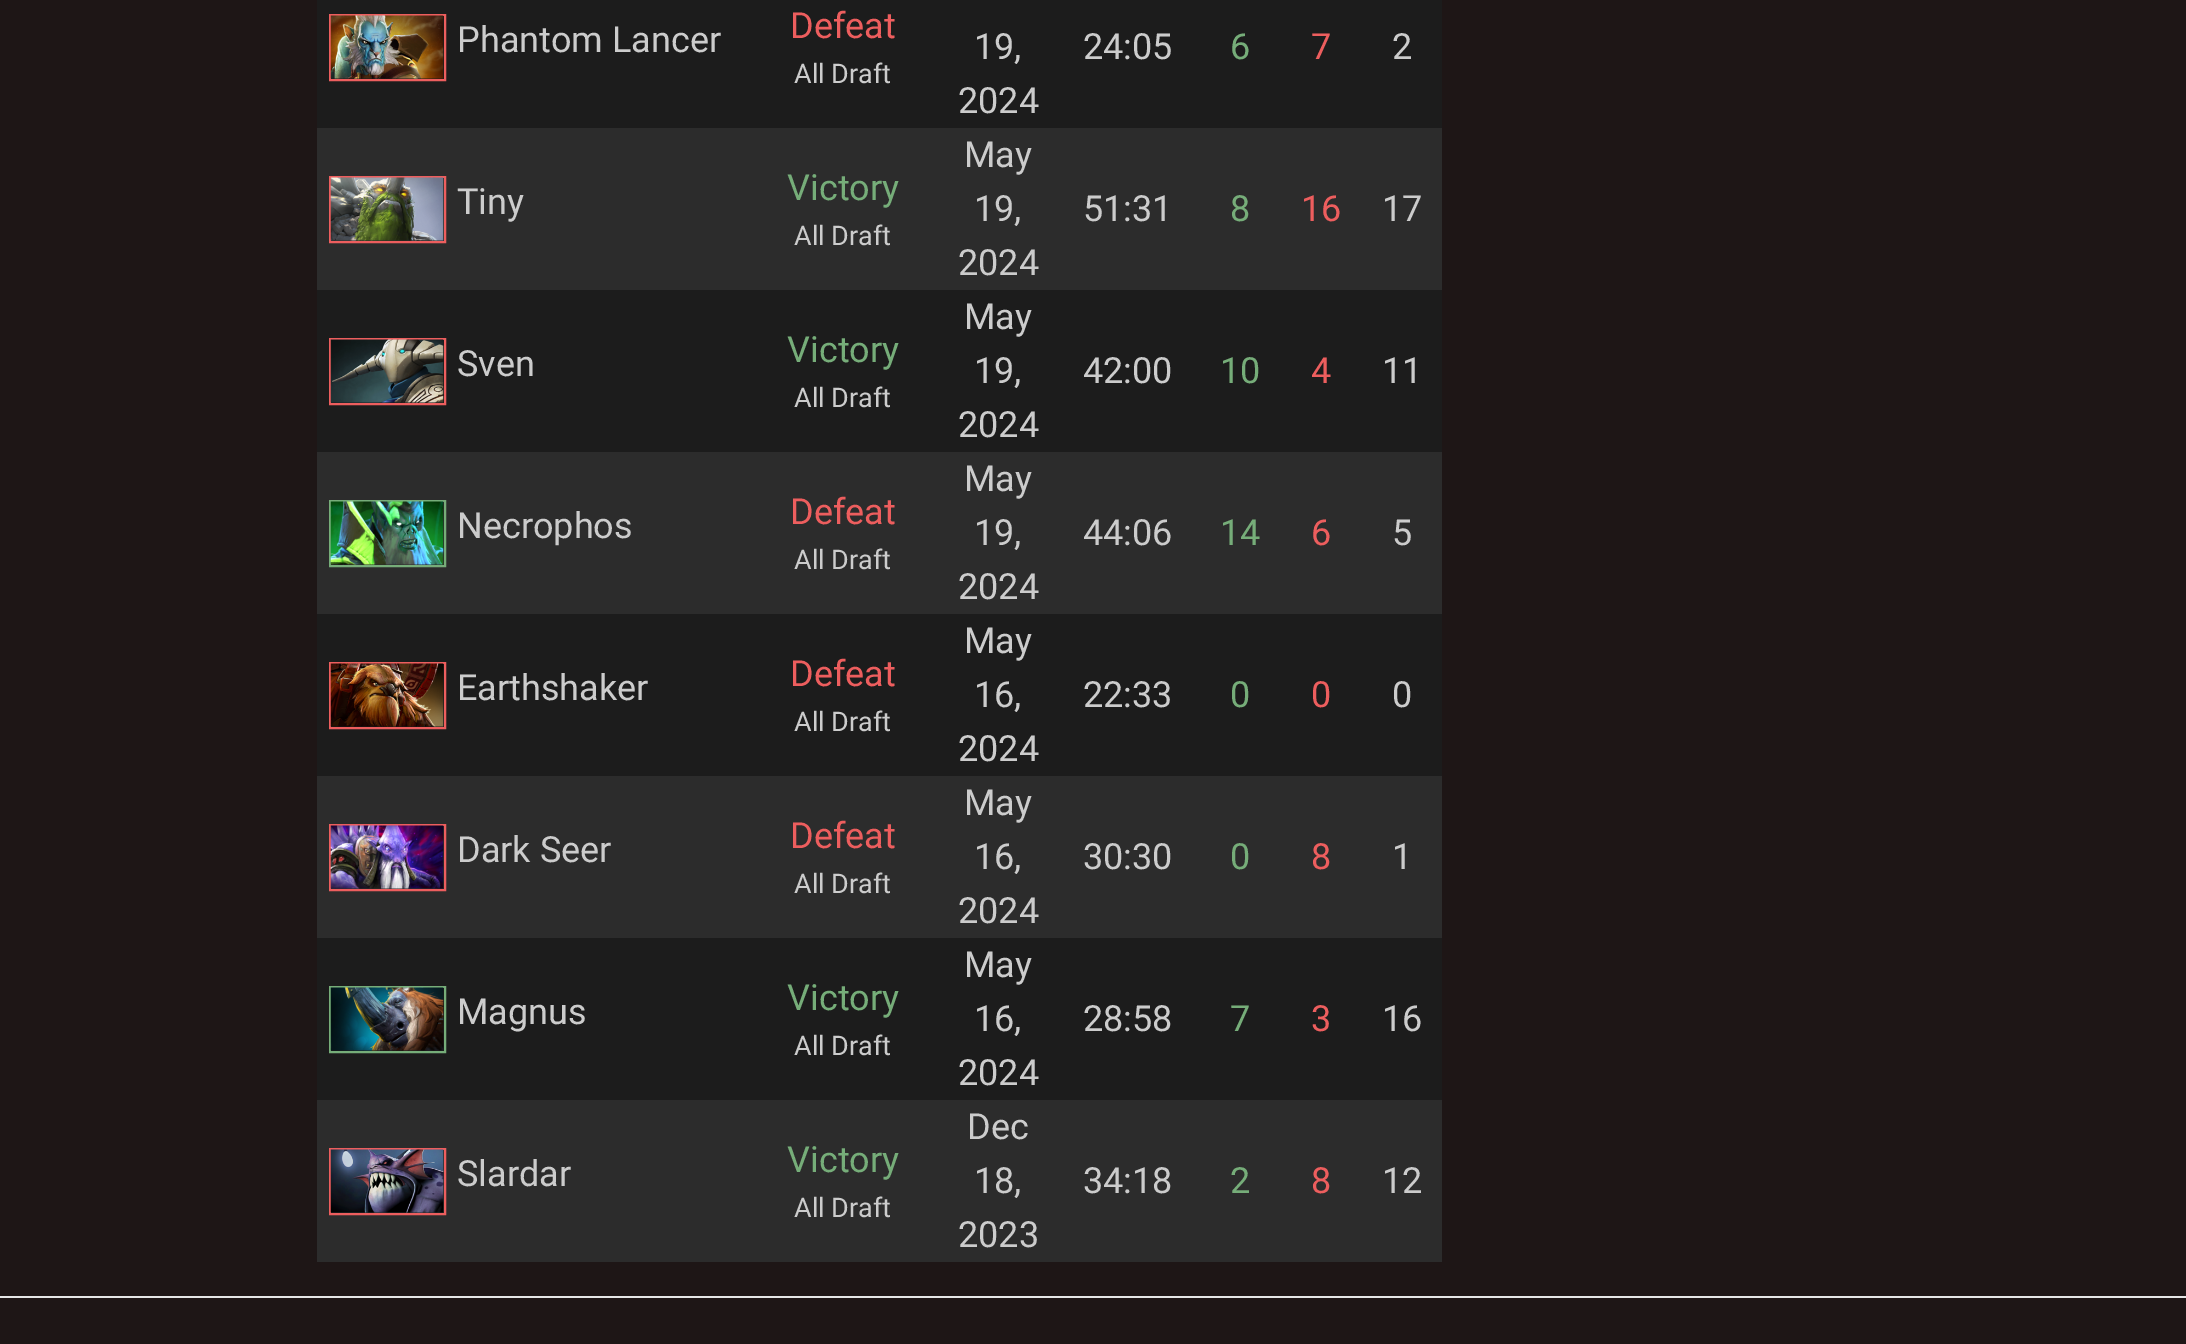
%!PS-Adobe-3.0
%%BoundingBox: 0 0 2186 1344
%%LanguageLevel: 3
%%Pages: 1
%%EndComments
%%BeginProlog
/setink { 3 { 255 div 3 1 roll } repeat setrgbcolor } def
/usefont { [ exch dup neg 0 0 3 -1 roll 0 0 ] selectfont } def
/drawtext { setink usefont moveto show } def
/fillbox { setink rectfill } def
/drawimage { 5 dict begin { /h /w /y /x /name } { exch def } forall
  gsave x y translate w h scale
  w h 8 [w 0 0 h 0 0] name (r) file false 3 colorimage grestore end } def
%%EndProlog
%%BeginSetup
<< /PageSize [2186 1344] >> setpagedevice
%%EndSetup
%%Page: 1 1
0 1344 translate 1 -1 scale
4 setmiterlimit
0 0 2186 1344 30 22 22 fillbox
317 0 1125 128 28 28 28 fillbox
237 94 94 setink
2 setlinewidth
330 15 115 65 rectstroke
(assets/img1.rgb) 330 15 114 64 drawimage
(Phantom Lancer) 457 52 /Roboto-Regular 36 204 204 204 drawtext
(Defeat) 790 38 /Roboto-Regular 36 237 94 94 drawtext
(All Draft) 794 83 /Roboto-Regular 27 204 204 204 drawtext
(19,) 974 59 /Roboto-Regular 36 204 204 204 drawtext
(2024) 958 113 /Roboto-Regular 36 204 204 204 drawtext
(24:05) 1083 59 /Roboto-Regular 36 204 204 204 drawtext
(6) 1230 59 /Roboto-Regular 36 118 173 121 drawtext
(7) 1311 59 /Roboto-Regular 36 237 94 94 drawtext
(2) 1392 59 /Roboto-Regular 36 204 204 204 drawtext
317 128 1125 162 44 44 44 fillbox
237 94 94 setink
330 177 115 65 rectstroke
(assets/img2.rgb) 330 177 114 64 drawimage
(Tiny) 457 214 /Roboto-Regular 36 204 204 204 drawtext
(Victory) 787 200 /Roboto-Regular 36 118 173 121 drawtext
(All Draft) 794 245 /Roboto-Regular 27 204 204 204 drawtext
(May) 964 167 /Roboto-Regular 36 204 204 204 drawtext
(19,) 974 221 /Roboto-Regular 36 204 204 204 drawtext
(2024) 958 275 /Roboto-Regular 36 204 204 204 drawtext
(51:31) 1083 221 /Roboto-Regular 36 204 204 204 drawtext
(8) 1230 221 /Roboto-Regular 36 118 173 121 drawtext
(16) 1301 221 /Roboto-Regular 36 237 94 94 drawtext
(17) 1382 221 /Roboto-Regular 36 204 204 204 drawtext
317 290 1125 162 28 28 28 fillbox
237 94 94 setink
330 339 115 65 rectstroke
(assets/img3.rgb) 330 339 114 64 drawimage
(Sven) 457 376 /Roboto-Regular 36 204 204 204 drawtext
(Victory) 787 362 /Roboto-Regular 36 118 173 121 drawtext
(All Draft) 794 407 /Roboto-Regular 27 204 204 204 drawtext
(May) 964 329 /Roboto-Regular 36 204 204 204 drawtext
(19,) 974 383 /Roboto-Regular 36 204 204 204 drawtext
(2024) 958 437 /Roboto-Regular 36 204 204 204 drawtext
(42:00) 1083 383 /Roboto-Regular 36 204 204 204 drawtext
(10) 1220 383 /Roboto-Regular 36 118 173 121 drawtext
(4) 1311 383 /Roboto-Regular 36 237 94 94 drawtext
(11) 1382 383 /Roboto-Regular 36 204 204 204 drawtext
317 452 1125 162 44 44 44 fillbox
118 173 121 setink
330 501 115 65 rectstroke
(assets/img4.rgb) 330 501 114 64 drawimage
(Necrophos) 457 538 /Roboto-Regular 36 204 204 204 drawtext
(Defeat) 790 524 /Roboto-Regular 36 237 94 94 drawtext
(All Draft) 794 569 /Roboto-Regular 27 204 204 204 drawtext
(May) 964 491 /Roboto-Regular 36 204 204 204 drawtext
(19,) 974 545 /Roboto-Regular 36 204 204 204 drawtext
(2024) 958 599 /Roboto-Regular 36 204 204 204 drawtext
(44:06) 1083 545 /Roboto-Regular 36 204 204 204 drawtext
(14) 1220 545 /Roboto-Regular 36 118 173 121 drawtext
(6) 1311 545 /Roboto-Regular 36 237 94 94 drawtext
(5) 1392 545 /Roboto-Regular 36 204 204 204 drawtext
317 614 1125 162 28 28 28 fillbox
237 94 94 setink
330 663 115 65 rectstroke
(assets/img5.rgb) 330 663 114 64 drawimage
(Earthshaker) 457 700 /Roboto-Regular 36 204 204 204 drawtext
(Defeat) 790 686 /Roboto-Regular 36 237 94 94 drawtext
(All Draft) 794 731 /Roboto-Regular 27 204 204 204 drawtext
(May) 964 653 /Roboto-Regular 36 204 204 204 drawtext
(16,) 974 707 /Roboto-Regular 36 204 204 204 drawtext
(2024) 958 761 /Roboto-Regular 36 204 204 204 drawtext
(22:33) 1083 707 /Roboto-Regular 36 204 204 204 drawtext
(0) 1230 707 /Roboto-Regular 36 118 173 121 drawtext
(0) 1311 707 /Roboto-Regular 36 237 94 94 drawtext
(0) 1392 707 /Roboto-Regular 36 204 204 204 drawtext
317 776 1125 162 44 44 44 fillbox
237 94 94 setink
330 825 115 65 rectstroke
(assets/img6.rgb) 330 825 114 64 drawimage
(Dark Seer) 457 862 /Roboto-Regular 36 204 204 204 drawtext
(Defeat) 790 848 /Roboto-Regular 36 237 94 94 drawtext
(All Draft) 794 893 /Roboto-Regular 27 204 204 204 drawtext
(May) 964 815 /Roboto-Regular 36 204 204 204 drawtext
(16,) 974 869 /Roboto-Regular 36 204 204 204 drawtext
(2024) 958 923 /Roboto-Regular 36 204 204 204 drawtext
(30:30) 1083 869 /Roboto-Regular 36 204 204 204 drawtext
(0) 1230 869 /Roboto-Regular 36 118 173 121 drawtext
(8) 1311 869 /Roboto-Regular 36 237 94 94 drawtext
(1) 1392 869 /Roboto-Regular 36 204 204 204 drawtext
317 938 1125 162 28 28 28 fillbox
118 173 121 setink
330 987 115 65 rectstroke
(assets/img7.rgb) 330 987 114 64 drawimage
(Magnus) 457 1024 /Roboto-Regular 36 204 204 204 drawtext
(Victory) 787 1010 /Roboto-Regular 36 118 173 121 drawtext
(All Draft) 794 1055 /Roboto-Regular 27 204 204 204 drawtext
(May) 964 977 /Roboto-Regular 36 204 204 204 drawtext
(16,) 974 1031 /Roboto-Regular 36 204 204 204 drawtext
(2024) 958 1085 /Roboto-Regular 36 204 204 204 drawtext
(28:58) 1083 1031 /Roboto-Regular 36 204 204 204 drawtext
(7) 1230 1031 /Roboto-Regular 36 118 173 121 drawtext
(3) 1311 1031 /Roboto-Regular 36 237 94 94 drawtext
(16) 1382 1031 /Roboto-Regular 36 204 204 204 drawtext
317 1100 1125 162 44 44 44 fillbox
237 94 94 setink
330 1149 115 65 rectstroke
(assets/img8.rgb) 330 1149 114 64 drawimage
(Slardar) 457 1186 /Roboto-Regular 36 204 204 204 drawtext
(Victory) 787 1172 /Roboto-Regular 36 118 173 121 drawtext
(All Draft) 794 1217 /Roboto-Regular 27 204 204 204 drawtext
(Dec) 967 1139 /Roboto-Regular 36 204 204 204 drawtext
(18,) 974 1193 /Roboto-Regular 36 204 204 204 drawtext
(2023) 958 1247 /Roboto-Regular 36 204 204 204 drawtext
(34:18) 1083 1193 /Roboto-Regular 36 204 204 204 drawtext
(2) 1230 1193 /Roboto-Regular 36 118 173 121 drawtext
(8) 1311 1193 /Roboto-Regular 36 237 94 94 drawtext
(12) 1382 1193 /Roboto-Regular 36 204 204 204 drawtext
0 1296 2186 2 229 229 229 fillbox
showpage
%%EOF
